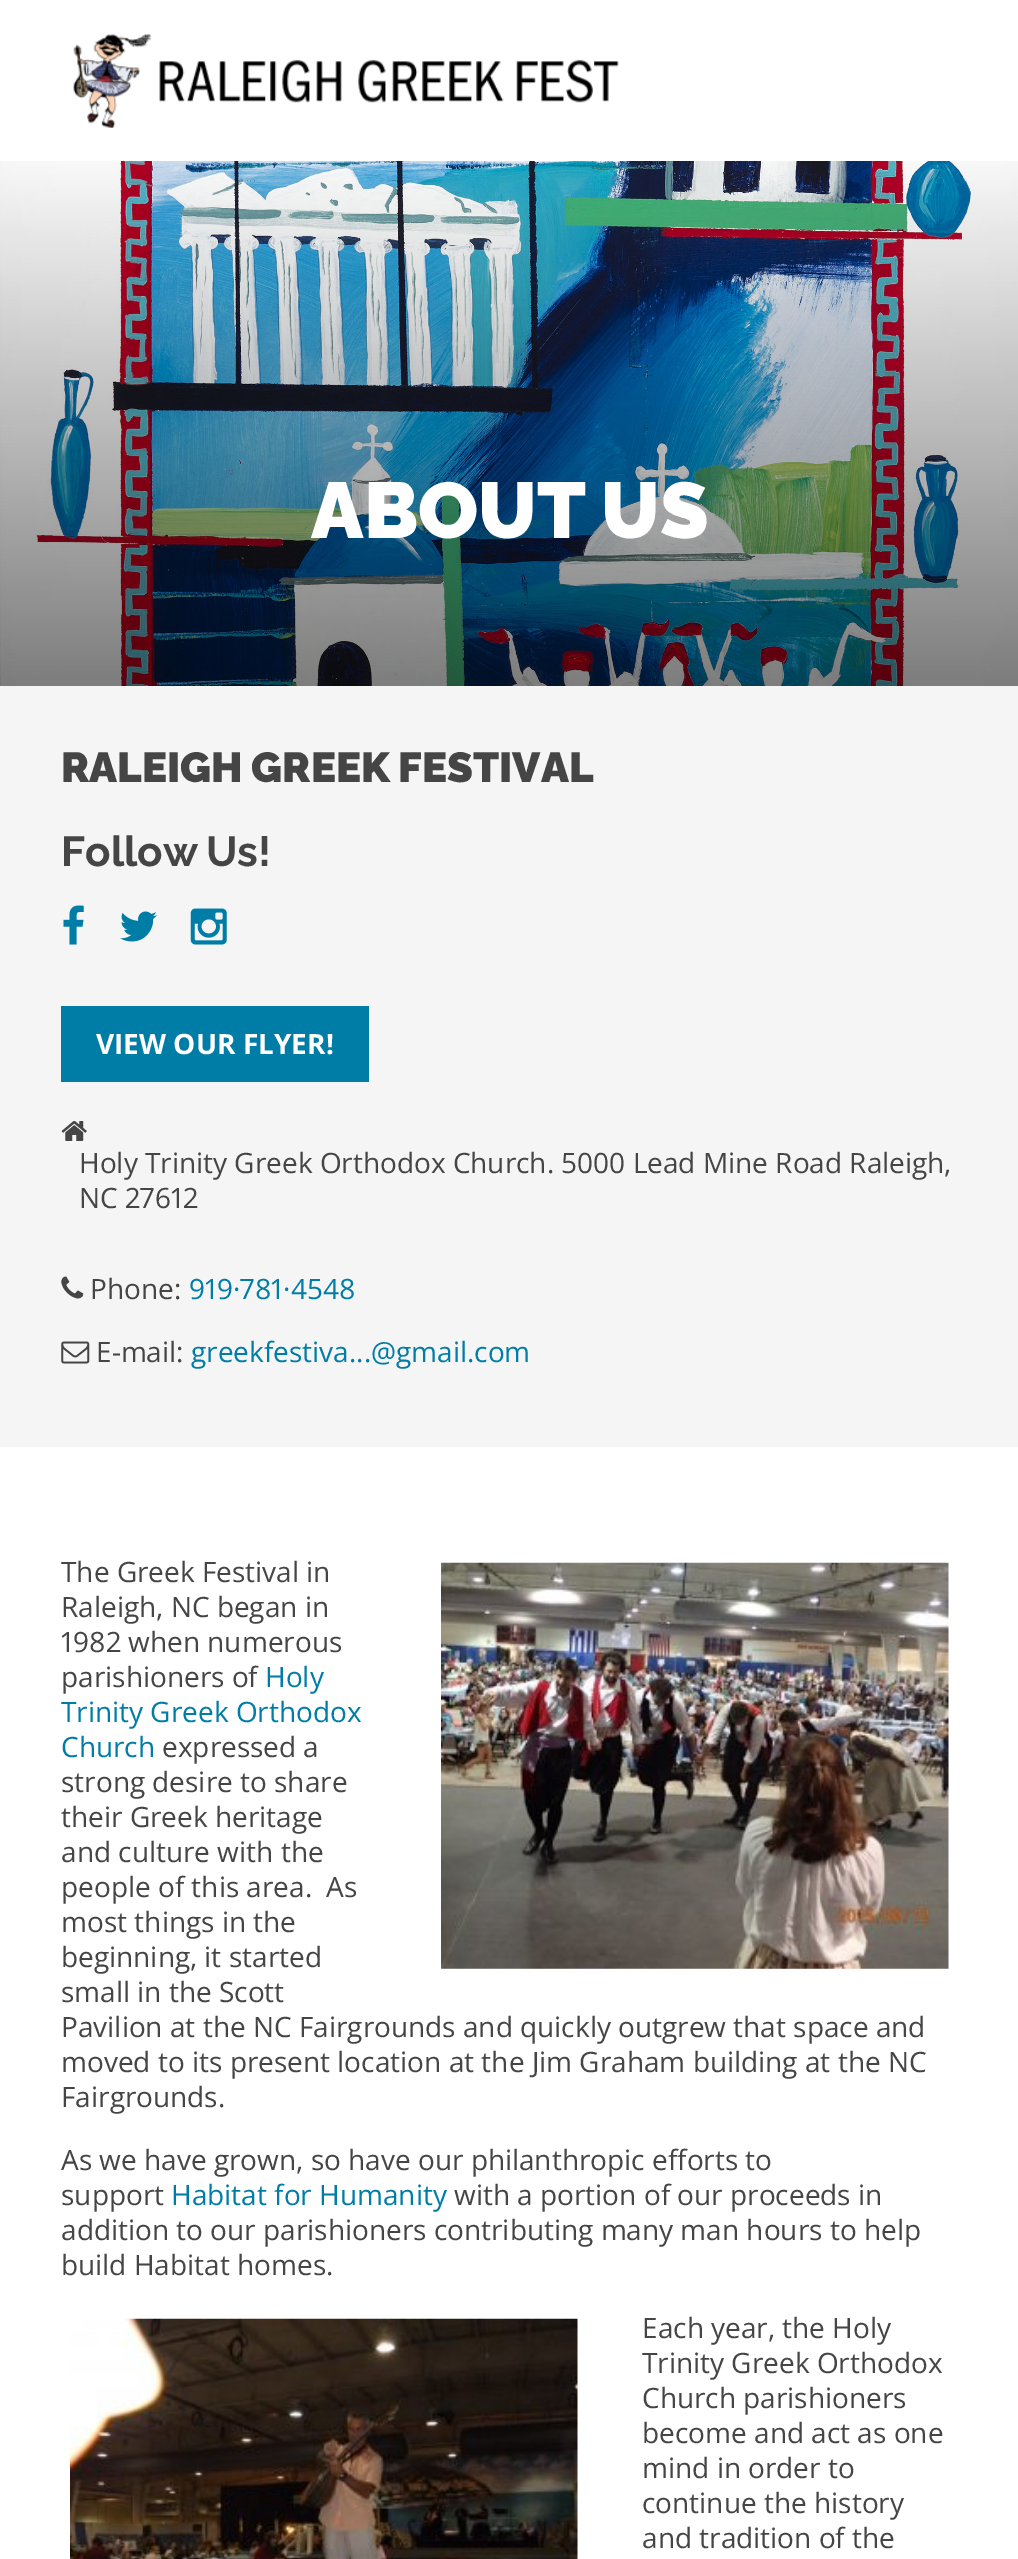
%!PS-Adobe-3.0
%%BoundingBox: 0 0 1018 2559
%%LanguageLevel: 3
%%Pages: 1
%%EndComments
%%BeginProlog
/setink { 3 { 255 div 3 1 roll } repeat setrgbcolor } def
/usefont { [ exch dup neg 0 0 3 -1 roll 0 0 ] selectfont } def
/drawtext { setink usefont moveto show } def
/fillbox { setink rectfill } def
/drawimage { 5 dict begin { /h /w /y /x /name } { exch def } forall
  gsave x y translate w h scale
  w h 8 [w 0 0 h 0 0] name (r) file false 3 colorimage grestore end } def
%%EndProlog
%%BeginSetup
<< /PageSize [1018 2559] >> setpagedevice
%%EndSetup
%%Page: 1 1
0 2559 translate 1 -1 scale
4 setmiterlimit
0 0 1018 2559 255 255 255 fillbox
(assets/img1.rgb) 73 34 546 94 drawimage
(assets/img2.rgb) 0 161 1018 525 drawimage
/Raleway-Black 78.75 usefont
311 538 moveto -2 0 32 (ABOUT US) widthshow
0 686 1018 761 245 245 245 fillbox
/Raleway-Black 42 usefont
69 69 69 setink
61 782 moveto -1 0 32 (RALEIGH GREEK FESTIVAL) widthshow
/Raleway-Bold 42 usefont
61 866 moveto -2 0 32 (Follow Us!) widthshow
(assets/img3.rgb) 63 905 21 40 drawimage
(assets/img4.rgb) 120 911 37 31 drawimage
(assets/img5.rgb) 190 908 37 37 drawimage
61 1006 308 76 0 125 167 fillbox
(VIEW OUR FLYER!) 96 1054 /OpenSans-Bold 28 255 255 255 drawtext
(assets/img6.rgb) 61 1121 26 20 drawimage
(Holy Trinity Greek Orthodox Church. 5000 Lead Mine Road Raleigh,) 79 1173 /OpenSans-Regular 28 69 69 69 drawtext
(NC 27612) 79 1208 /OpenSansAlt-Regular 28 69 69 69 drawtext
(assets/img7.rgb) 61 1276 23 23 drawimage
(Phone:) 90 1299 /OpenSans-Regular 28 69 69 69 drawtext
(919·781·4548) 189 1299 /OpenSansAlt-Regular 28 0 125 167 drawtext
(assets/img8.rgb) 61 1341 29 23 drawimage
(E-mail:) 96 1362 /OpenSans-Regular 28 69 69 69 drawtext
(greekfestiva...@gmail.com) 191 1362 /OpenSans-Regular 28 0 125 167 drawtext
(The Greek Festival in) 61 1582 /OpenSans-Regular 28 69 69 69 drawtext
(assets/img9.rgb) 441 1562 508 407 drawimage
(Raleigh, NC began in) 61 1617 /OpenSans-Regular 28 69 69 69 drawtext
(1982 when numerous) 61 1652 /OpenSansAlt-Regular 28 69 69 69 drawtext
(parishioners of) 61 1687 /OpenSans-Regular 28 69 69 69 drawtext
(Holy) 265 1687 /OpenSans-Regular 28 0 125 167 drawtext
(Trinity Greek Orthodox) 61 1722 /OpenSans-Regular 28 0 125 167 drawtext
(Church) 61 1757 /OpenSans-Regular 28 0 125 167 drawtext
(expressed a) 162 1757 /OpenSans-Regular 28 69 69 69 drawtext
(strong desire to share) 61 1792 /OpenSans-Regular 28 69 69 69 drawtext
(their Greek heritage) 61 1827 /OpenSans-Regular 28 69 69 69 drawtext
(and culture with the) 61 1862 /OpenSans-Regular 28 69 69 69 drawtext
(people of this area.  As) 61 1897 /OpenSans-Regular 28 69 69 69 drawtext
(most things in the) 61 1932 /OpenSans-Regular 28 69 69 69 drawtext
(beginning, it started) 61 1967 /OpenSans-Regular 28 69 69 69 drawtext
(small in the Scott) 61 2002 /OpenSans-Regular 28 69 69 69 drawtext
(Pavilion at the NC Fairgrounds and quickly outgrew that space and) 61 2037 /OpenSans-Regular 28 69 69 69 drawtext
(moved to its present location at the Jim Graham building at the NC) 61 2072 /OpenSans-Regular 28 69 69 69 drawtext
(Fairgrounds.) 61 2107 /OpenSans-Regular 28 69 69 69 drawtext
(As we have grown, so have our philanthropic efforts to) 61 2170 /OpenSans-Regular 28 69 69 69 drawtext
(support) 61 2205 /OpenSans-Regular 28 69 69 69 drawtext
(Habitat for Humanity) 171 2205 /OpenSans-Regular 28 0 125 167 drawtext
(with a portion of our proceeds in) 454 2205 /OpenSans-Regular 28 69 69 69 drawtext
(addition to our parishioners contributing many man hours to help) 61 2240 /OpenSans-Regular 28 69 69 69 drawtext
(build Habitat homes.) 61 2275 /OpenSans-Regular 28 69 69 69 drawtext
(assets/img10.rgb) 70 2318 508 241 drawimage
(Each year, the Holy) 642 2338 /OpenSans-Regular 28 69 69 69 drawtext
(Trinity Greek Orthodox) 642 2373 /OpenSans-Regular 28 69 69 69 drawtext
(Church parishioners) 642 2408 /OpenSans-Regular 28 69 69 69 drawtext
(become and act as one) 642 2443 /OpenSans-Regular 28 69 69 69 drawtext
(mind in order to) 642 2478 /OpenSans-Regular 28 69 69 69 drawtext
(continue the history) 642 2513 /OpenSans-Regular 28 69 69 69 drawtext
(and tradition of the) 642 2548 /OpenSans-Regular 28 69 69 69 drawtext
showpage
%%EOF
